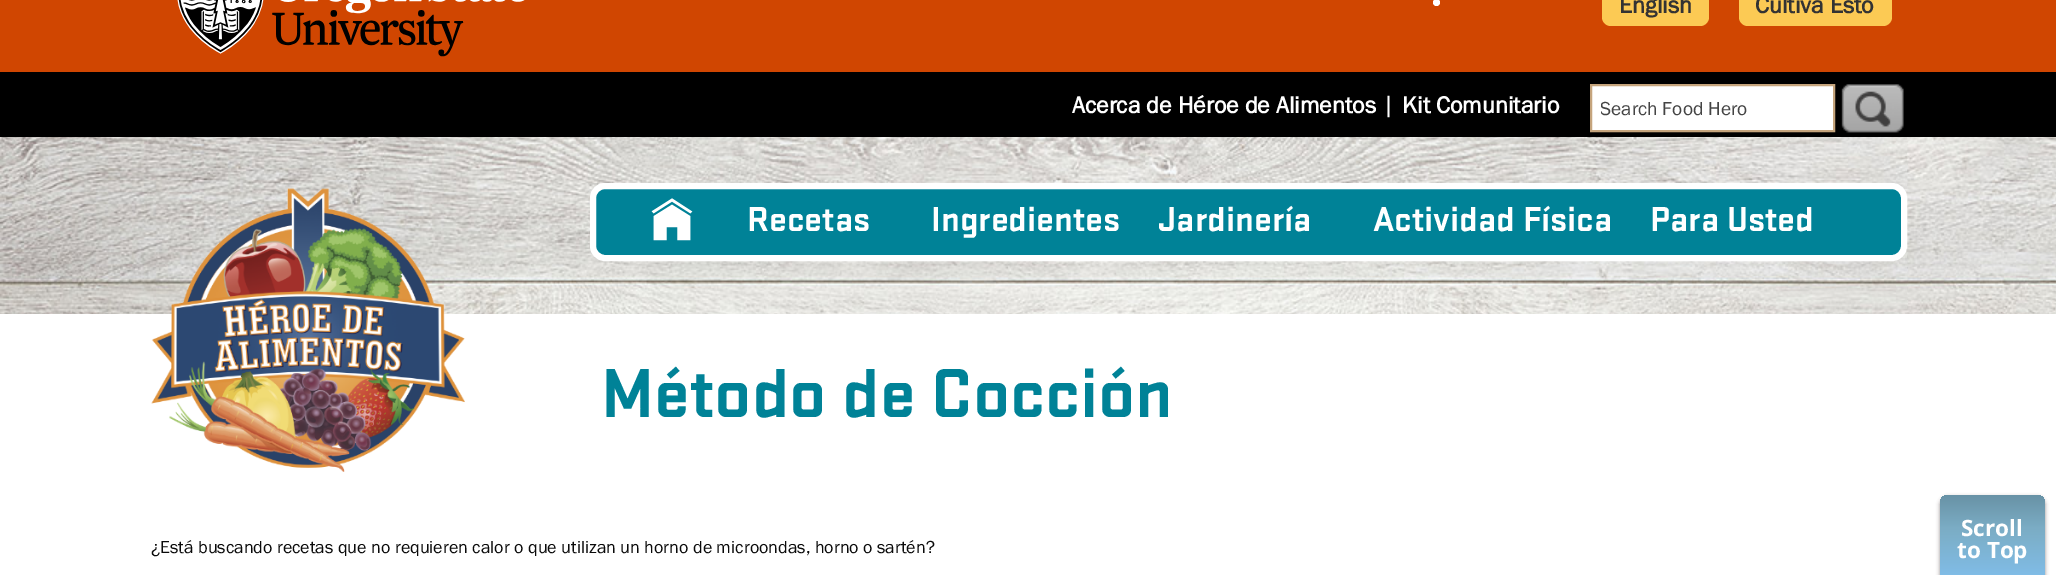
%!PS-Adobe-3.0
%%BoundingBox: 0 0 2056 575
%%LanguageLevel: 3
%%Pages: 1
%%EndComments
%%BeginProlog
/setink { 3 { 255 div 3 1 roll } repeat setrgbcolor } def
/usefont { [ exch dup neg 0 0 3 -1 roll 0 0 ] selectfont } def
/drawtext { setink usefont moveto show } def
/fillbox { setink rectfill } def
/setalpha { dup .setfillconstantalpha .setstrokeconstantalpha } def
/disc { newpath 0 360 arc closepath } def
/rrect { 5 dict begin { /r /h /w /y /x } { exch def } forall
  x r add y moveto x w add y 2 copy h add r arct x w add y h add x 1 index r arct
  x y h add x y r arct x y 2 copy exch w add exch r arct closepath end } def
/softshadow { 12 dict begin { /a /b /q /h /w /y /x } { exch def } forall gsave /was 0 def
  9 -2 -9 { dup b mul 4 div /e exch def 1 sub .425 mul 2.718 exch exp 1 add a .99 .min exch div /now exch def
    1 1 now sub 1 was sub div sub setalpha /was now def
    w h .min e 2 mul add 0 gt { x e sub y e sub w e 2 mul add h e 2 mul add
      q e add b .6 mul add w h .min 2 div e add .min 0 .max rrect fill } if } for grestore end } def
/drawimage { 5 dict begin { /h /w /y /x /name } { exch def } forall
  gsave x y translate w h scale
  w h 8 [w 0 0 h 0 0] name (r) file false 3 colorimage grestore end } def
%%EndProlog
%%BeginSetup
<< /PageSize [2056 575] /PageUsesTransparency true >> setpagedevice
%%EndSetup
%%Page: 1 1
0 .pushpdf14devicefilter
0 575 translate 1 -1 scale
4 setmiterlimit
0 0 2056 575 0 0 0 fillbox
0 0 2056 72 208 70 1 fillbox
(assets/img1.rgb) 177 0 348 57 drawimage
255 255 255 setink
1436.5 2.5 3.5 disc fill
252 202 84 setink
1602 -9 107 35 9 rrect fill
(English) 1619 13 /FranklinGothic-Bold 24 51 51 51 drawtext
252 202 84 setink
1739 -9 153 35 9 rrect fill
(Cultiva Esto) 1755 13 /FranklinGothic-Bold 24 51 51 51 drawtext
(Acerca de Héroe de Alimentos) 1072 113 /FranklinGothic-Bold 24 255 255 255 drawtext
(|) 1382 113 /FranklinGothic-Regular 26 255 255 255 drawtext
(Kit Comunitario) 1402 113 /FranklinGothic-Bold 24 255 255 255 drawtext
1591 85 moveto 1834 85 lineto 1834 131 lineto 1591 131 lineto closepath gsave fill grestore
197 164 124 setink
2 setlinewidth
stroke
gsave
1601 96 223 23 rectclip
(Search Food Hero) 1600 115 /FranklinGothic-Regular 19.5 68 68 68 drawtext
grestore
(assets/img2.rgb) 1841 84 63 49 drawimage
(assets/img3.rgb) 0 137 2056 177 drawimage
0 130 151 setink
593 186 1311 72 12 rrect gsave fill grestore
255 255 255 setink
6 setlinewidth
stroke
(assets/img4.rgb) 651 198 42 43 drawimage
(Recetas) 747 231 /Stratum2-Bold 36 255 255 255 drawtext
(Ingredientes) 931 231 /Stratum2-Bold 36 255 255 255 drawtext
(Jardinería) 1158 231 /Stratum2-Bold 36 255 255 255 drawtext
(Actividad Física) 1373 231 /Stratum2-Bold 36 255 255 255 drawtext
(Para Usted) 1650 231 /Stratum2-Bold 36 255 255 255 drawtext
0 314 2056 261 255 255 255 fillbox
(assets/img5.rgb) 151 188 314 284 drawimage
(Método de Cocción) 601 417 /Stratum2-Bold 72 0 130 151 drawtext
(¿Está buscando recetas que no requieren calor o que utilizan un horno de microondas, horno o sartén?) 151 553 /FranklinGothic-Regular 18 10 10 10 drawtext
34 25 25 setink
1940 497 105 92 8 2 0.5 softshadow
gsave 1940 495 105 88 8 rrect clip newpath
<< /ShadingType 2 /ColorSpace /DeviceRGB /Coords [1992 495 1992 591] /Extend [true true] /Function << /FunctionType 3 /Domain [0 1] /Functions [<< /FunctionType 2 /Domain [0 1] /C0 [0.408 0.573 0.651] /C1 [0.482 0.675 0.769] /N 1 >> << /FunctionType 2 /Domain [0 1] /C0 [0.482 0.675 0.769] /C1 [0.51 0.757 0.949] /N 1 >>] /Bounds [0.34] /Encode [0 1 0 1] >> >> shfill grestore
(Scroll) 1961 536 /OpenSans-Bold 22.5 255 255 255 drawtext
(to Top) 1957 558 /OpenSans-Bold 22.5 255 255 255 drawtext
.poppdf14devicefilter showpage
%%EOF
